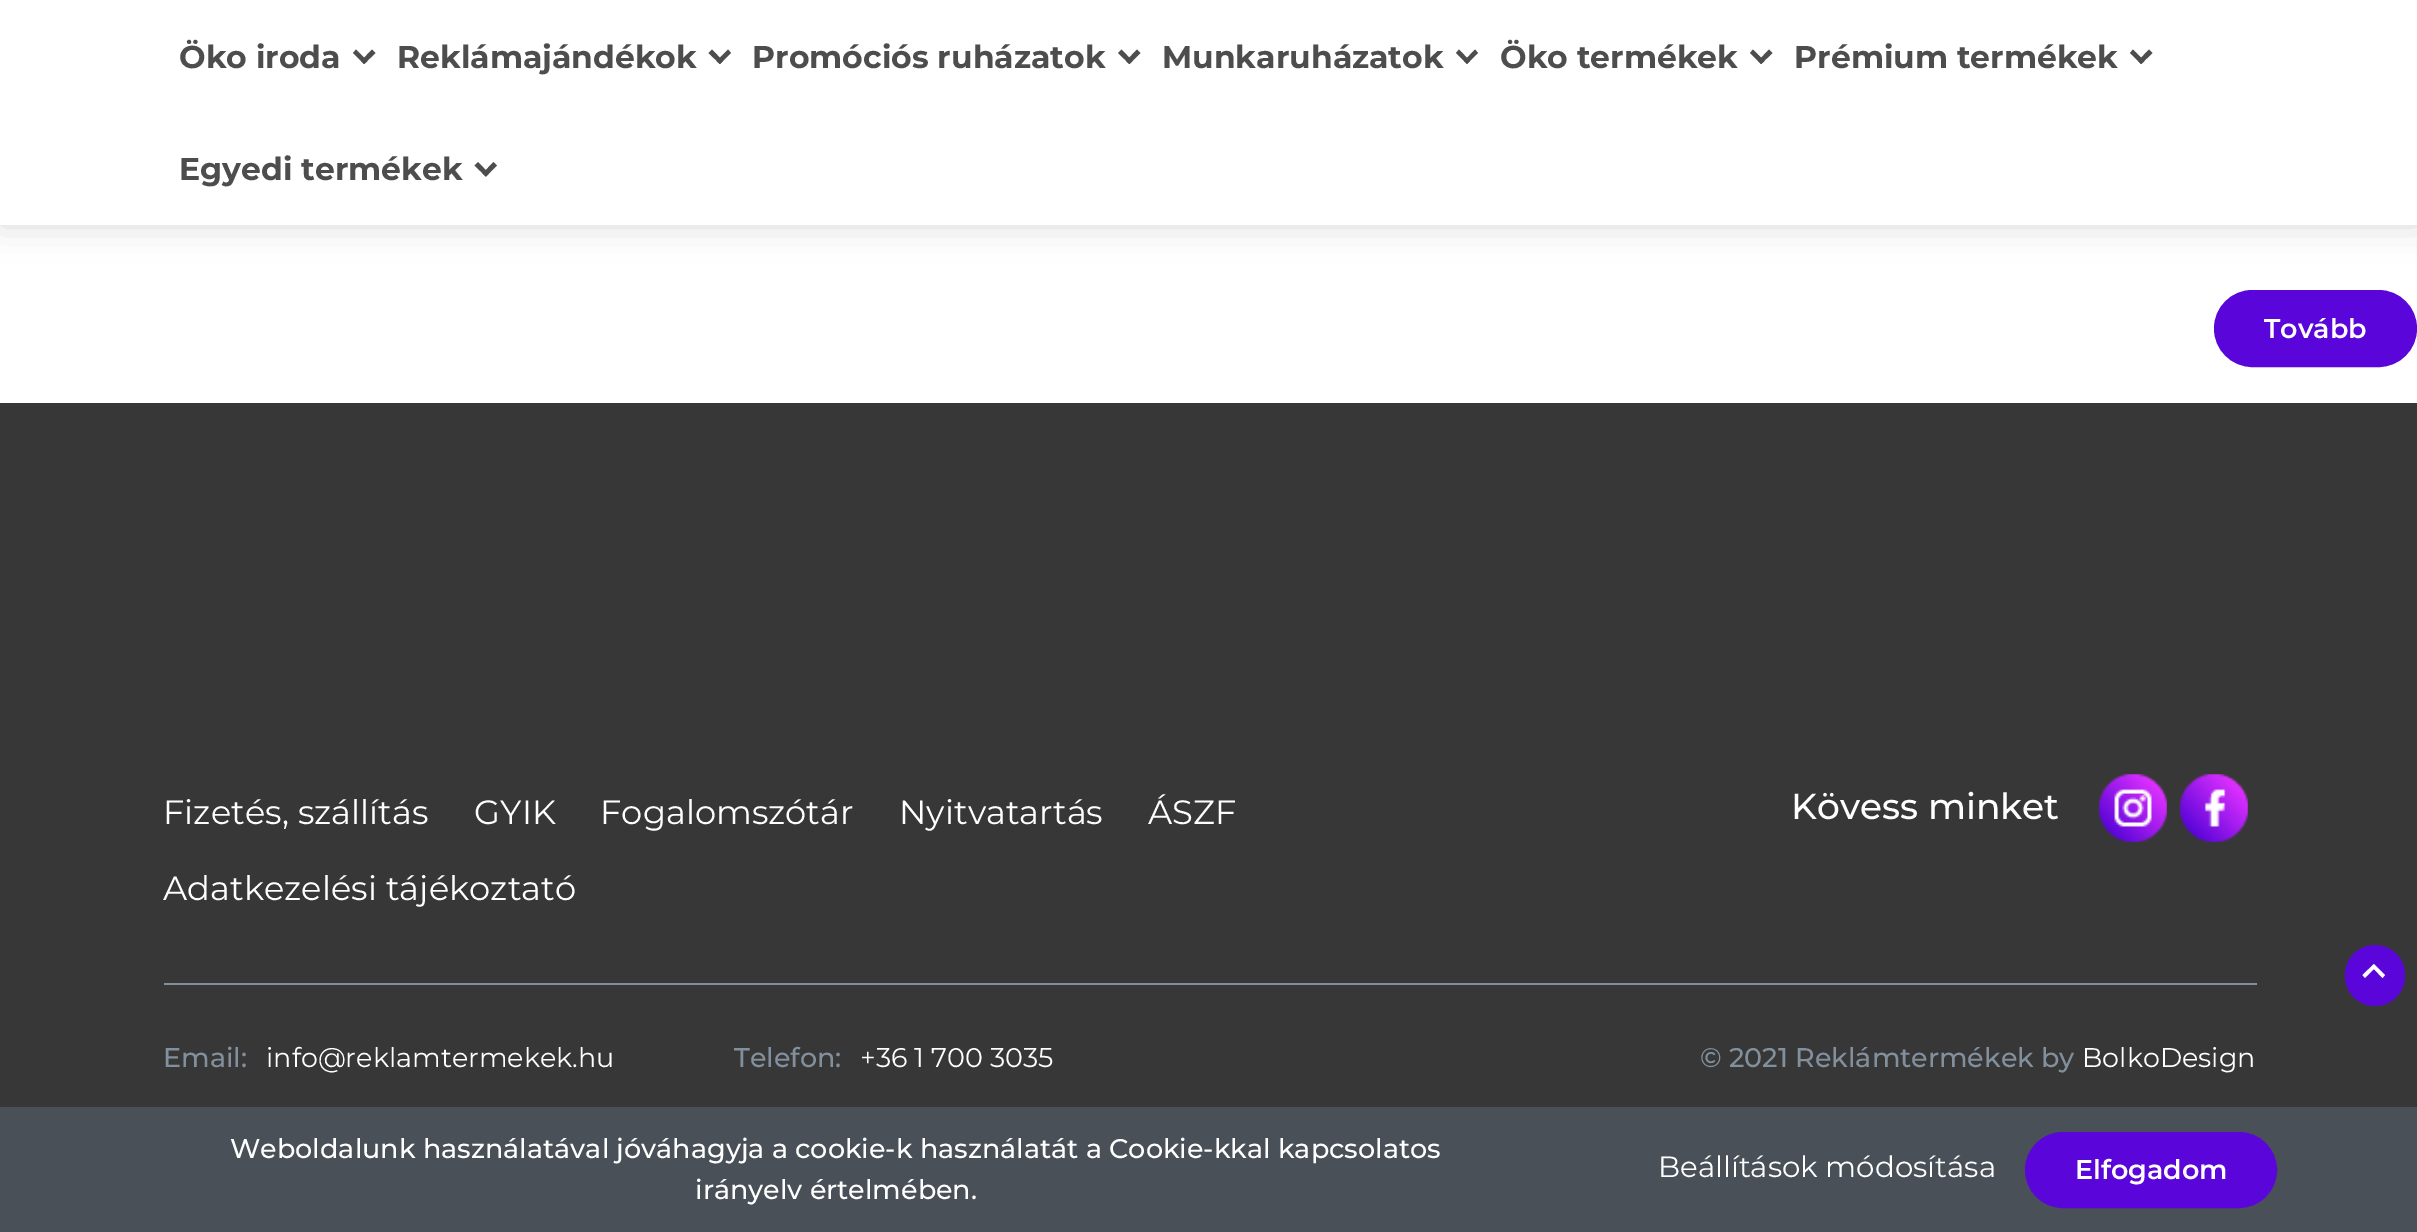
%!PS-Adobe-3.0
%%BoundingBox: 0 0 2417 1232
%%LanguageLevel: 3
%%Pages: 1
%%EndComments
%%BeginProlog
/setink { 3 { 255 div 3 1 roll } repeat setrgbcolor } def
/usefont { [ exch dup neg 0 0 3 -1 roll 0 0 ] selectfont } def
/drawtext { setink usefont moveto show } def
/fillbox { setink rectfill } def
/setalpha { dup .setfillconstantalpha .setstrokeconstantalpha } def
/rrect { 5 dict begin { /r /h /w /y /x } { exch def } forall
  x r add y moveto x w add y 2 copy h add r arct x w add y h add x 1 index r arct
  x y h add x y r arct x y 2 copy exch w add exch r arct closepath end } def
/softshadow { 12 dict begin { /a /b /q /h /w /y /x } { exch def } forall gsave /was 0 def
  9 -2 -9 { dup b mul 4 div /e exch def 1 sub .425 mul 2.718 exch exp 1 add a .99 .min exch div /now exch def
    1 1 now sub 1 was sub div sub setalpha /was now def
    w h .min e 2 mul add 0 gt { x e sub y e sub w e 2 mul add h e 2 mul add
      q e add b .6 mul add w h .min 2 div e add .min 0 .max rrect fill } if } for grestore end } def
/drawimage { 5 dict begin { /h /w /y /x /name } { exch def } forall
  gsave x y translate w h scale
  w h 8 [w 0 0 h 0 0] name (r) file false 3 colorimage grestore end } def
%%EndProlog
%%BeginSetup
<< /PageSize [2417 1232] /PageUsesTransparency true >> setpagedevice
%%EndSetup
%%Page: 1 1
0 .pushpdf14devicefilter
0 1232 translate 1 -1 scale
4 setmiterlimit
0 0 2417 1232 255 255 255 fillbox
0 0 0 setink
0 0 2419 225 0 17 0.15 softshadow
0 0 2417 225 255 255 255 fillbox
(Öko iroda) 179 68 /Montserrat-Bold 31.5 77 77 77 drawtext
372 49.5 moveto 375.5 53 lineto 364 64 lineto 361 61 lineto closepath fill
356 49.5 moveto 367.5 61 lineto 364 64 lineto 353 53 lineto closepath fill
(Reklámajándékok) 397 68 /Montserrat-Bold 31.5 77 77 77 drawtext
728 49.5 moveto 731 53 lineto 720 64 lineto 716.5 61 lineto closepath fill
712 49.5 moveto 723 61 lineto 720 64 lineto 708.5 53 lineto closepath fill
(Promóciós ruházatok) 752 68 /Montserrat-Bold 31.5 77 77 77 drawtext
1137 49.5 moveto 1140.5 53 lineto 1129.5 64 lineto 1126 61 lineto closepath fill
1121.5 49.5 moveto 1132.5 61 lineto 1129.5 64 lineto 1118 53 lineto closepath fill
(Munkaruházatok) 1162 68 /Montserrat-Bold 31.5 77 77 77 drawtext
1475 49.5 moveto 1478 53 lineto 1467 64 lineto 1464 61 lineto closepath fill
1459 49.5 moveto 1470 61 lineto 1467 64 lineto 1456 53 lineto closepath fill
(Öko termékek) 1500 68 /Montserrat-Bold 31.5 77 77 77 drawtext
1769 49.5 moveto 1772.5 53 lineto 1761 64 lineto 1758 61 lineto closepath fill
1753 49.5 moveto 1764.5 61 lineto 1761 64 lineto 1750 53 lineto closepath fill
(Prémium termékek) 1794 68 /Montserrat-Bold 31.5 77 77 77 drawtext
2149 49.5 moveto 2152.5 53 lineto 2141 64 lineto 2138 61 lineto closepath fill
2133 49.5 moveto 2144.5 61 lineto 2141 64 lineto 2130 53 lineto closepath fill
(Egyedi termékek) 179 180 /Montserrat-Bold 31.5 77 77 77 drawtext
493.5 162 moveto 497 165.5 lineto 486 176.5 lineto 482.5 173.5 lineto closepath fill
478 162 moveto 489 173.5 lineto 486 176.5 lineto 474.5 165.5 lineto closepath fill
90 5 217 setink
2216.5 292.5 198 72 36 rrect gsave fill grestore
5 setlinewidth
stroke
(Tovább) 2264 338 /Montserrat-SemiBold 27 255 255 255 drawtext
0 403 2417 704 55 55 55 fillbox
(Fizetés, szállítás) 163 824 /Montserrat-Regular 33.75 255 255 255 drawtext
(GYIK) 474 824 /Montserrat-Regular 33.75 255 255 255 drawtext
(Fogalomszótár) 600 824 /Montserrat-Regular 33.75 255 255 255 drawtext
(Nyitvatartás) 899 824 /Montserrat-Regular 33.75 255 255 255 drawtext
(ÁSZF) 1148 824 /Montserrat-Regular 33.75 255 255 255 drawtext
(Adatkezelési tájékoztató) 163 900 /Montserrat-Regular 33.75 255 255 255 drawtext
(Kövess minket) 1791 819 /Montserrat-Medium 36 255 255 255 drawtext
(assets/img1.rgb) 2099 774 68 68 drawimage
(assets/img2.rgb) 2180 774 68 68 drawimage
164 983 2093 2 130 144 157 fillbox
(Email:) 163 1067 /Montserrat-Medium 27 130 144 157 drawtext
(info@reklamtermekek.hu) 266 1067 /Montserrat-Regular 27 255 255 255 drawtext
(Telefon:) 734 1067 /Montserrat-Medium 27 130 144 157 drawtext
(+36 1 700 3035) 860 1067 /Montserrat-Regular 27 255 255 255 drawtext
(© 2021 Reklámtermékek by) 1700 1067 /Montserrat-Medium 27 130 144 157 drawtext
(BolkoDesign) 2082 1067 /Montserrat-Regular 27 255 255 255 drawtext
90 5 217 setink
2345 945 60 61 30 rrect fill
255 255 255 setink
2362.5 975 moveto 2365 978 lineto 2374 969 lineto 2382.5 978 lineto 2385 975 lineto 2374 964 lineto closepath fill
0 1107 2417 125 73 80 87 fillbox
(Weboldalunk használatával jóváhagyja a cookie-k használatát a Cookie-kkal kapcsolatos) 230 1158 /Montserrat-Medium 27 255 255 255 drawtext
(irányelv értelmében.) 695 1199 /Montserrat-Medium 27 255 255 255 drawtext
(Beállítások módosítása) 1658 1177 /Montserrat-Regular 29.25 255 255 255 drawtext
90 5 217 setink
2027.5 1134.5 247 71 35.5 rrect gsave fill grestore
stroke
(Elfogadom) 2075 1179 /Montserrat-SemiBold 27 255 255 255 drawtext
.poppdf14devicefilter showpage
%%EOF
